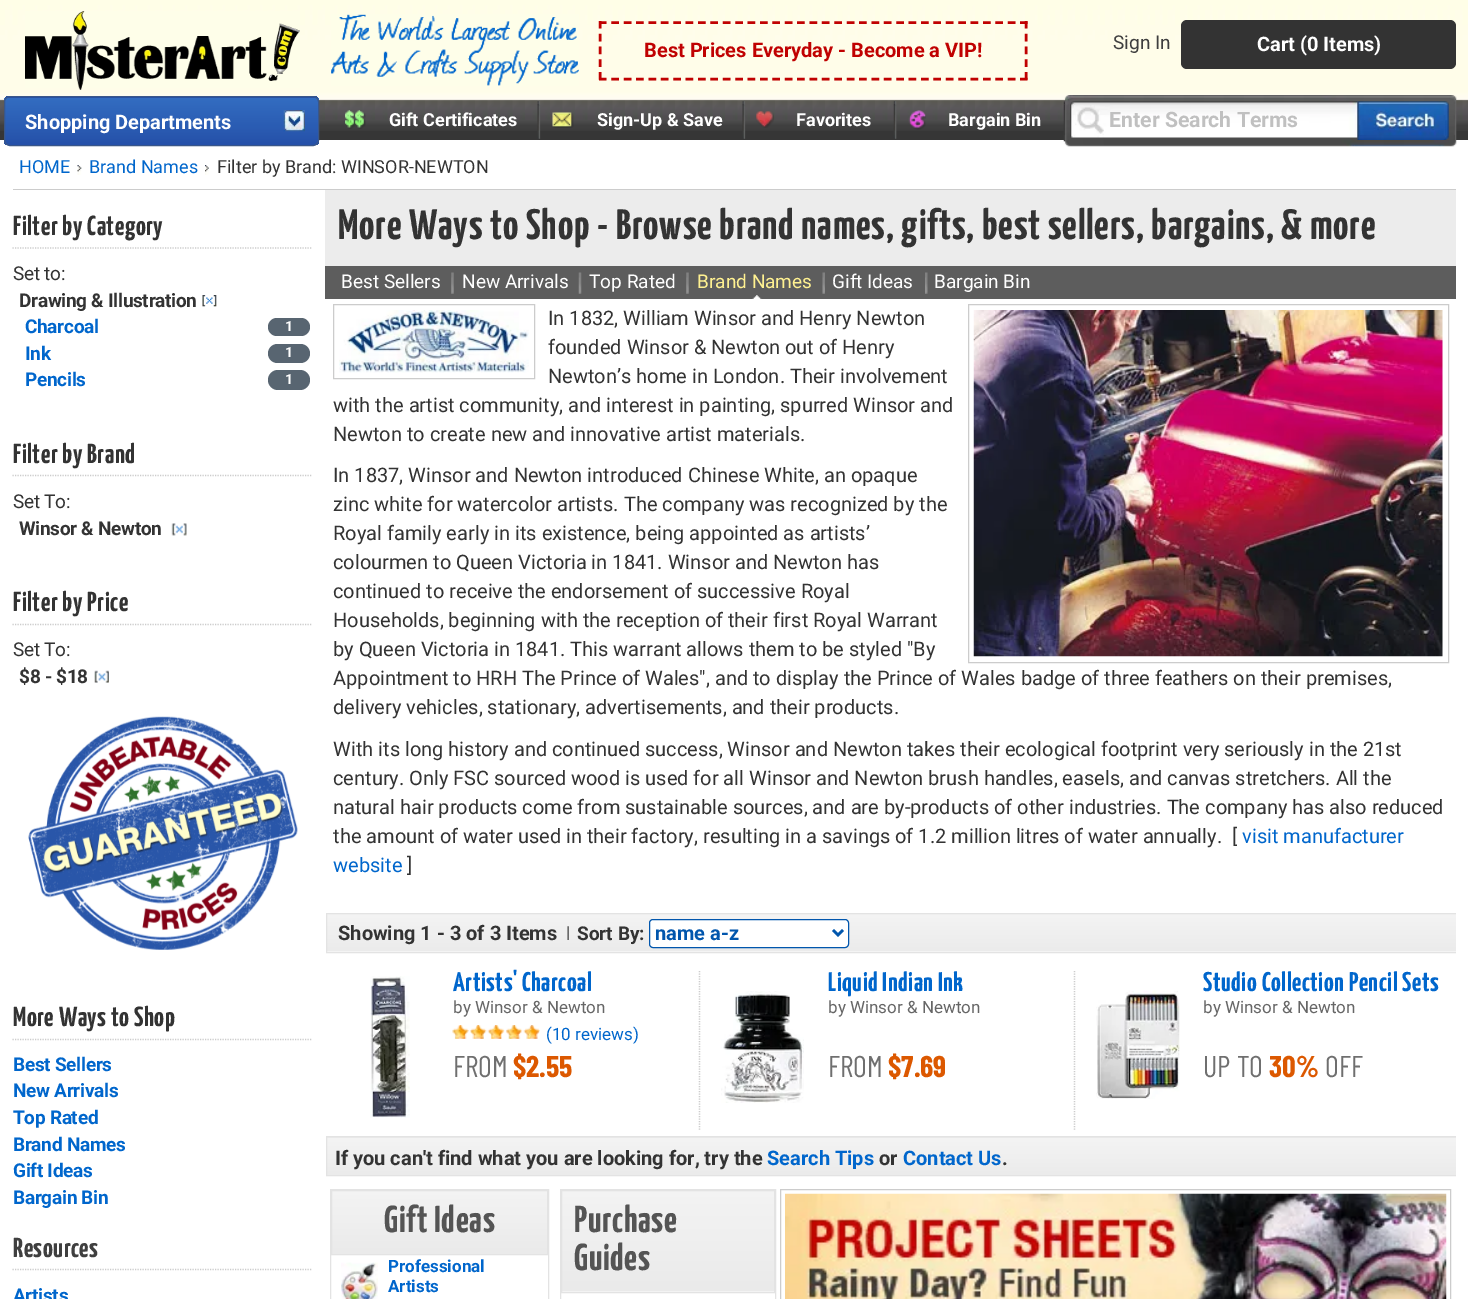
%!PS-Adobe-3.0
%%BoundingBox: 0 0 1468 1299
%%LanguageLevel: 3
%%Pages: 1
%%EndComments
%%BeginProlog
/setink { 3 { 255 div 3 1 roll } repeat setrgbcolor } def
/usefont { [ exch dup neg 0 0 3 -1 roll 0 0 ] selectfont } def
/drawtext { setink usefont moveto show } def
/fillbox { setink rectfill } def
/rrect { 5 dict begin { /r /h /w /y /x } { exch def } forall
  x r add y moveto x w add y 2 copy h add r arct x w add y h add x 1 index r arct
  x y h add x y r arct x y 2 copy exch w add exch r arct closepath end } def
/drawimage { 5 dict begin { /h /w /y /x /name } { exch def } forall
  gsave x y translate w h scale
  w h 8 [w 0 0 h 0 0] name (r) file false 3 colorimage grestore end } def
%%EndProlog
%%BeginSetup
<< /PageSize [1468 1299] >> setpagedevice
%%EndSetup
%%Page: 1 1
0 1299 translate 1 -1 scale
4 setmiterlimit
0 0 1468 1299 255 255 255 fillbox
0 131 1468 9 54 54 54 fillbox
(assets/img1.rgb) 0 0 1468 131 drawimage
(assets/img2.rgb) 25 11 275 79 drawimage
(assets/img3.rgb) 331 14 248 72 drawimage
192 1 1 setink
2.5 setlinewidth
[7.5 4.89] 0 setdash
599 22.5 moveto 1027.5 22.5 lineto stroke
[7.5 5.31] 0 setdash
1026 21 moveto 1026 80 lineto stroke
[7.5 4.89] 0 setdash
599 79 moveto 1027.5 79 lineto stroke
[7.5 5.31] 0 setdash
600 21 moveto 600 80 lineto stroke
(Best Prices Everyday - Become a VIP!) 644 57 /Roboto-Bold 20 192 1 1 drawtext
(Sign In) 1113 49 /Roboto-Regular 19 63 63 63 drawtext
51 51 51 setink
1181 20 275 49 6 rrect fill
(Cart \(0 Items\)) 1257 51 /Roboto-Bold 20 255 255 255 drawtext
gsave
4 96 315 50 6 rrect clip newpath
gsave 4 96 moveto 319 96 lineto 319 98 lineto 4 98 lineto closepath clip newpath
<< /ShadingType 2 /ColorSpace /DeviceRGB /Coords [161 50 161 98] /Extend [true true] /Function << /FunctionType 3 /Domain [0 1] /Functions [<< /FunctionType 2 /Domain [0 1] /C0 [0.2 0.431 0.757] /C1 [0.165 0.357 0.698] /N 1 >> << /FunctionType 2 /Domain [0 1] /C0 [0.165 0.357 0.698] /C1 [0.145 0.314 0.663] /N 1 >>] /Bounds [0.66] /Encode [0 1 0 1] >> >> shfill grestore
gsave 4 98 moveto 319 98 lineto 319 145 lineto 4 145 lineto closepath clip newpath
<< /ShadingType 2 /ColorSpace /DeviceRGB /Coords [161 97 161 145] /Extend [true true] /Function << /FunctionType 3 /Domain [0 1] /Functions [<< /FunctionType 2 /Domain [0 1] /C0 [0.2 0.431 0.757] /C1 [0.165 0.357 0.698] /N 1 >> << /FunctionType 2 /Domain [0 1] /C0 [0.165 0.357 0.698] /C1 [0.145 0.314 0.663] /N 1 >>] /Bounds [0.66] /Encode [0 1 0 1] >> >> shfill grestore
grestore
58 87 137 setink
1 setlinewidth
[] 0 setdash
4.5 96.5 314 49 5.5 rrect stroke
(Shopping Departments) 25 129 /Roboto-Bold 20 255 255 255 drawtext
(assets/img4.rgb) 283 110 22 22 drawimage
(assets/img5.rgb) 345 110 21 19 drawimage
(Gift Certificates) 389 126 /Roboto-Bold 18 255 255 255 drawtext
(assets/img6.rgb) 537 101 4 38 drawimage
(assets/img7.rgb) 552 112 22 16 drawimage
(Sign-Up & Save) 597 126 /Roboto-Bold 18 255 255 255 drawtext
(assets/img8.rgb) 742 101 4 38 drawimage
(assets/img9.rgb) 756 111 18 17 drawimage
(Favorites) 796 126 /Roboto-Bold 18 255 255 255 drawtext
(assets/img10.rgb) 893 101 4 38 drawimage
(assets/img11.rgb) 908 110 18 20 drawimage
(Bargain Bin) 948 126 /Roboto-Bold 18 255 255 255 drawtext
(assets/img12.rgb) 1063 95 394 52 drawimage
(assets/img13.rgb) 1070 101 288 37 drawimage
(Enter Search Terms) 1109 127 /Roboto-Bold 21.25 192 192 192 drawtext
(assets/img14.rgb) 1357 101 92 39 drawimage
13 189 1443 1 204 204 204 fillbox
(HOME) 19 173 /Roboto-Regular 18 0 102 204 drawtext
(assets/img15.rgb) 77 165 5 10 drawimage
(Brand Names) 89 173 /Roboto-Regular 18 0 102 204 drawtext
(assets/img16.rgb) 205 165 4 10 drawimage
(Filter by Brand: WINSOR-NEWTON) 217 173 /Roboto-Regular 18 51 51 51 drawtext
204 204 204 setink
1.2 setlinewidth
[1.25 1.25] 0 setdash
12.5 248 moveto 312.5 248 lineto stroke
/YanoneKaffeesatz-ExtraLight 27.5 usefont
51 51 51 setink
13 235 moveto 0.5 0 (Filter by Category) ashow
/Roboto-Regular 19 usefont
13 280 moveto -0.3 0 (Set to:) ashow
/Roboto-Bold 19 usefont
19 307 moveto -0.3 0 (Drawing & Illustration) ashow
(assets/img17.rgb) 202 295 15 12 drawimage
0 102 204 setink
25 333 moveto -0.3 0 (Charcoal) ashow
88 101 113 setink
268 318 42 18 9 rrect fill
/Roboto-Bold 14 usefont
255 255 255 setink
285 331 moveto -0.3 0 (1) ashow
/Roboto-Bold 19 usefont
0 102 204 setink
25 360 moveto -0.3 0 (Ink) ashow
88 101 113 setink
268 344 42 19 9.5 rrect fill
/Roboto-Bold 14 usefont
255 255 255 setink
285 357 moveto -0.3 0 (1) ashow
/Roboto-Bold 19 usefont
0 102 204 setink
25 386 moveto -0.3 0 (Pencils) ashow
88 101 113 setink
268 370 42 20 10 rrect fill
/Roboto-Bold 14 usefont
255 255 255 setink
285 384 moveto -0.3 0 (1) ashow
204 204 204 setink
12.5 475.5 moveto 312.5 475.5 lineto stroke
/YanoneKaffeesatz-ExtraLight 27.5 usefont
51 51 51 setink
13 463 moveto 0.5 0 (Filter by Brand) ashow
/Roboto-Regular 19 usefont
13 508 moveto -0.3 0 (Set To:) ashow
/Roboto-Bold 19 usefont
19 535 moveto -0.3 0 (Winsor & Newton) ashow
(assets/img18.rgb) 171 523 16 13 drawimage
204 204 204 setink
12.5 624.5 moveto 312.5 624.5 lineto stroke
/YanoneKaffeesatz-ExtraLight 27.5 usefont
51 51 51 setink
13 611 moveto 0.5 0 (Filter by Price) ashow
/Roboto-Regular 19 usefont
13 656 moveto -0.3 0 (Set To:) ashow
/Roboto-Bold 19 usefont
19 683 moveto -0.3 0 ($8 - $18) ashow
(assets/img19.rgb) 94 670 15 13 drawimage
(assets/img20.rgb) 28 716 270 234 drawimage
204 204 204 setink
12.5 1039.5 moveto 312.5 1039.5 lineto stroke
/YanoneKaffeesatz-ExtraLight 27.5 usefont
51 51 51 setink
13 1026 moveto 0.5 0 (More Ways to Shop) ashow
/Roboto-Bold 19 usefont
0 102 204 setink
13 1071 moveto -0.3 0 (Best Sellers) ashow
13 1097 moveto -0.3 0 (New Arrivals) ashow
13 1124 moveto -0.3 0 (Top Rated) ashow
13 1151 moveto -0.3 0 (Brand Names) ashow
13 1177 moveto -0.3 0 (Gift Ideas) ashow
13 1204 moveto -0.3 0 (Bargain Bin) ashow
204 204 204 setink
12.5 1269.5 moveto 312.5 1269.5 lineto stroke
/YanoneKaffeesatz-ExtraLight 27.5 usefont
63 63 63 setink
13 1257 moveto 0.5 0 (Resources) ashow
/Roboto-Bold 19 usefont
0 102 204 setink
13 1302 moveto -0.3 0 (Artists) ashow
325 190 1131 76 236 236 236 fillbox
/YanoneKaffeesatz-ExtraLight 42.5 usefont
51 51 51 setink
338 239 moveto 0.85 0 (More Ways to Shop - Browse brand names, gifts, best sellers, bargains, & more) ashow
325 266 1131 33 93 93 93 fillbox
(Best Sellers) 341 288 /Roboto-Regular 19 255 255 255 drawtext
(assets/img21.rgb) 451 272 3 22 drawimage
(New Arrivals) 462 288 /Roboto-Regular 19 255 255 255 drawtext
(assets/img22.rgb) 578 272 4 22 drawimage
(Top Rated) 589 288 /Roboto-Regular 19 255 255 255 drawtext
(assets/img21.rgb) 686 272 3 22 drawimage
(Brand Names) 697 288 /Roboto-Regular 19 255 241 145 drawtext
(assets/img23.rgb) 822 272 3 22 drawimage
(Gift Ideas) 832 288 /Roboto-Regular 19 255 255 255 drawtext
(assets/img24.rgb) 925 272 3 22 drawimage
(Bargain Bin) 934 288 /Roboto-Regular 19 255 255 255 drawtext
(assets/img25.rgb) 752 295 10 4 drawimage
204 204 204 setink
1 setlinewidth
[] 0 setdash
333.5 304.5 201 74 rectstroke
(assets/img26.rgb) 339 310 190 63 drawimage
968.5 304.5 480 358 rectstroke
(assets/img27.rgb) 973 310 470 347 drawimage
(In 1832, William Winsor and Henry Newton) 548 325 /Roboto-Regular 20 51 51 51 drawtext
(founded Winsor & Newton out of Henry) 548 354 /Roboto-Regular 20 51 51 51 drawtext
(Newton’s home in London. Their involvement) 548 383 /Roboto-Regular 20 51 51 51 drawtext
(with the artist community, and interest in painting, spurred Winsor and) 333 412 /Roboto-Regular 20 51 51 51 drawtext
(Newton to create new and innovative artist materials.) 333 441 /Roboto-Regular 20 51 51 51 drawtext
(In 1837, Winsor and Newton introduced Chinese White, an opaque) 333 482 /Roboto-Regular 20 51 51 51 drawtext
(zinc white for watercolor artists. The company was recognized by the) 333 511 /Roboto-Regular 20 51 51 51 drawtext
(Royal family early in its existence, being appointed as artists’) 333 540 /Roboto-Regular 20 51 51 51 drawtext
(colourmen to Queen Victoria in 1841. Winsor and Newton has) 333 569 /Roboto-Regular 20 51 51 51 drawtext
(continued to receive the endorsement of successive Royal) 333 598 /Roboto-Regular 20 51 51 51 drawtext
(Households, beginning with the reception of their first Royal Warrant) 333 627 /Roboto-Regular 20 51 51 51 drawtext
(by Queen Victoria in 1841. This warrant allows them to be styled "By) 333 656 /Roboto-Regular 20 51 51 51 drawtext
(Appointment to HRH The Prince of Wales", and to display the Prince of Wales badge of three feathers on their premises,) 333 685 /Roboto-Regular 20 51 51 51 drawtext
(delivery vehicles, stationary, advertisements, and their products.) 333 714 /Roboto-Regular 20 51 51 51 drawtext
(With its long history and continued success, Winsor and Newton takes their ecological footprint very seriously in the 21st) 333 756 /Roboto-Regular 20 51 51 51 drawtext
(century. Only FSC sourced wood is used for all Winsor and Newton brush handles, easels, and canvas stretchers. All the) 333 785 /Roboto-Regular 20 51 51 51 drawtext
(natural hair products come from sustainable sources, and are by-products of other industries. The company has also reduced) 333 814 /Roboto-Regular 20 51 51 51 drawtext
(the amount of water used in their factory, resulting in a savings of 1.2 million litres of water annually.  [) 333 843 /Roboto-Regular 20 51 51 51 drawtext
(visit manufacturer) 1242 843 /Roboto-Regular 20 0 102 204 drawtext
(website) 333 872 /Roboto-Regular 20 0 102 204 drawtext
(]) 407 872 /Roboto-Regular 20 51 51 51 drawtext
gsave 327 914 moveto 1456 914 lineto 1456 951 lineto 327 951 lineto closepath clip newpath
<< /ShadingType 2 /ColorSpace /DeviceRGB /Coords [893 914 893 951] /Extend [true true] /Function << /FunctionType 2 /Domain [0 1] /C0 [0.957 0.957 0.957] /C1 [0.922 0.922 0.922] /N 1 >> >> shfill grestore
gsave 326 951 moveto 1456 951 lineto 1456 952 lineto 326 952 lineto closepath clip newpath
<< /ShadingType 2 /ColorSpace /DeviceRGB /Coords [893 951 893 989] /Extend [true true] /Function << /FunctionType 2 /Domain [0 1] /C0 [0.957 0.957 0.957] /C1 [0.922 0.922 0.922] /N 1 >> >> shfill grestore
gsave
313 190 1143 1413 rectclip
227 227 227 setink
326.5 913.5 1133 39 rectstroke
grestore
(assets/img28.rgb) 567 926 2 14 drawimage
(Showing 1 - 3 of 3 Items) 338 940 /Roboto-Bold 20 51 51 51 drawtext
(Sort By:) 577 940 /Roboto-Bold 19 51 51 51 drawtext
255 255 255 setink
649.5 919.5 199 28 3.5 rrect gsave fill grestore
1 86 173 setink
stroke
2.5 setlinewidth
833 930 moveto 838 935 lineto 843 930 lineto stroke
(name a-z) 655 940 /Roboto-Bold 20 1 86 173 drawtext
204 204 204 setink
1.2 setlinewidth
[1.25 1.25] 0 setdash
699.5 971 moveto 699.5 1130 lineto stroke
(assets/img29.rgb) 370 976 40 142 drawimage
/YanoneKaffeesatz-ExtraLight 27 usefont
0 102 204 setink
453 991 moveto 0.55 0 (Artists' Charcoal) ashow
(by Winsor & Newton) 453 1013 /Roboto-Regular 17 102 102 102 drawtext
(assets/img30.rgb) 452 1025 88 14 drawimage
(\(10 reviews\)) 546 1040 /Roboto-Regular 17 0 102 204 drawtext
(FROM) 453 1077 /BarlowCondensed-Regular 30 111 111 111 drawtext
($2.55) 513 1077 /BarlowCondensed-Bold 30 220 88 0 drawtext
204 204 204 setink
1074.5 971 moveto 1074.5 1130 lineto stroke
(assets/img31.rgb) 721 991 83 112 drawimage
/YanoneKaffeesatz-ExtraLight 27 usefont
0 102 204 setink
828 991 moveto 0.55 0 (Liquid Indian Ink) ashow
(by Winsor & Newton) 828 1013 /Roboto-Regular 17 102 102 102 drawtext
(FROM) 828 1077 /BarlowCondensed-Regular 30 111 111 111 drawtext
($7.69) 888 1077 /BarlowCondensed-Bold 30 220 88 0 drawtext
(assets/img32.rgb) 1096 990 84 109 drawimage
/YanoneKaffeesatz-ExtraLight 27 usefont
0 102 204 setink
1203 991 moveto 0.55 0 (Studio Collection Pencil Sets) ashow
(by Winsor & Newton) 1203 1013 /Roboto-Regular 17 102 102 102 drawtext
(UP TO) 1203 1077 /BarlowCondensed-Regular 30 111 111 111 drawtext
(30%) 1269 1077 /BarlowCondensed-Bold 30 220 88 0 drawtext
(OFF) 1325 1077 /BarlowCondensed-Regular 30 111 111 111 drawtext
gsave 326 1137 moveto 1456 1137 lineto 1456 1138 lineto 326 1138 lineto closepath clip newpath
<< /ShadingType 2 /ColorSpace /DeviceRGB /Coords [893 1100 893 1138] /Extend [true true] /Function << /FunctionType 2 /Domain [0 1] /C0 [0.957 0.957 0.957] /C1 [0.922 0.922 0.922] /N 1 >> >> shfill grestore
gsave 327 1138 moveto 1456 1138 lineto 1456 1175 lineto 327 1175 lineto closepath clip newpath
<< /ShadingType 2 /ColorSpace /DeviceRGB /Coords [893 1138 893 1175] /Extend [true true] /Function << /FunctionType 2 /Domain [0 1] /C0 [0.957 0.957 0.957] /C1 [0.922 0.922 0.922] /N 1 >> >> shfill grestore
gsave
313 190 1143 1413 rectclip
227 227 227 setink
1 setlinewidth
[] 0 setdash
326.5 1136.5 1133 39 rectstroke
grestore
(If you can't find what you are looking for, try the) 335 1165 /Roboto-Bold 20 51 51 51 drawtext
(Search Tips) 767 1165 /Roboto-Bold 20 0 102 204 drawtext
(or) 879 1165 /Roboto-Bold 20 51 51 51 drawtext
(Contact Us) 903 1165 /Roboto-Bold 20 0 102 204 drawtext
(.) 1002 1165 /Roboto-Bold 20 51 51 51 drawtext
227 227 227 setink
1 setlinewidth
[] 0 setdash
330.5 1189.5 218 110 rectstroke
gsave 332 1191 moveto 547 1191 lineto 547 1254 lineto 332 1254 lineto closepath clip newpath
<< /ShadingType 2 /ColorSpace /DeviceRGB /Coords [439 1191 439 1254] /Extend [true true] /Function << /FunctionType 3 /Domain [0 1] /Functions [<< /FunctionType 2 /Domain [0 1] /C0 [0.953 0.953 0.953] /C1 [0.953 0.953 0.953] /N 1 >> << /FunctionType 2 /Domain [0 1] /C0 [0.953 0.953 0.953] /C1 [0.918 0.918 0.918] /N 1 >>] /Bounds [0.01] /Encode [0 1 0 1] >> >> shfill grestore
331.5 1190.5 216 64 rectstroke
/YanoneKaffeesatz-ExtraLight 37.5 usefont
84 84 84 setink
384 1232 moveto 0.75 0 (Gift Ideas) ashow
(assets/img33.rgb) 341 1262 37 37 drawimage
(Professional) 388 1272 /Roboto-Bold 17 0 102 204 drawtext
(Artists) 388 1292 /Roboto-Bold 17 0 102 204 drawtext
227 227 227 setink
560.5 1189.5 215 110 rectstroke
gsave 562 1191 moveto 774 1191 lineto 774 1291 lineto 562 1291 lineto closepath clip newpath
<< /ShadingType 2 /ColorSpace /DeviceRGB /Coords [668 1191 668 1291] /Extend [true true] /Function << /FunctionType 3 /Domain [0 1] /Functions [<< /FunctionType 2 /Domain [0 1] /C0 [0.953 0.953 0.953] /C1 [0.953 0.953 0.953] /N 1 >> << /FunctionType 2 /Domain [0 1] /C0 [0.953 0.953 0.953] /C1 [0.918 0.918 0.918] /N 1 >>] /Bounds [0.01] /Encode [0 1 0 1] >> >> shfill grestore
gsave 561 1291 moveto 775 1291 lineto 775 1292 lineto 561 1292 lineto closepath clip newpath
<< /ShadingType 2 /ColorSpace /DeviceRGB /Coords [668 1291 668 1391] /Extend [true true] /Function << /FunctionType 3 /Domain [0 1] /Functions [<< /FunctionType 2 /Domain [0 1] /C0 [0.953 0.953 0.953] /C1 [0.953 0.953 0.953] /N 1 >> << /FunctionType 2 /Domain [0 1] /C0 [0.953 0.953 0.953] /C1 [0.918 0.918 0.918] /N 1 >>] /Bounds [0.01] /Encode [0 1 0 1] >> >> shfill grestore
561.5 1190.5 213 102 rectstroke
/YanoneKaffeesatz-ExtraLight 37.5 usefont
84 84 84 setink
574 1232 moveto 0.75 0 (Purchase) ashow
574 1270 moveto 0.75 0 (Guides) ashow
204 204 204 setink
780.5 1189.5 670 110 rectstroke
(assets/img34.rgb) 785 1193 662 106 drawimage
showpage
%%EOF
